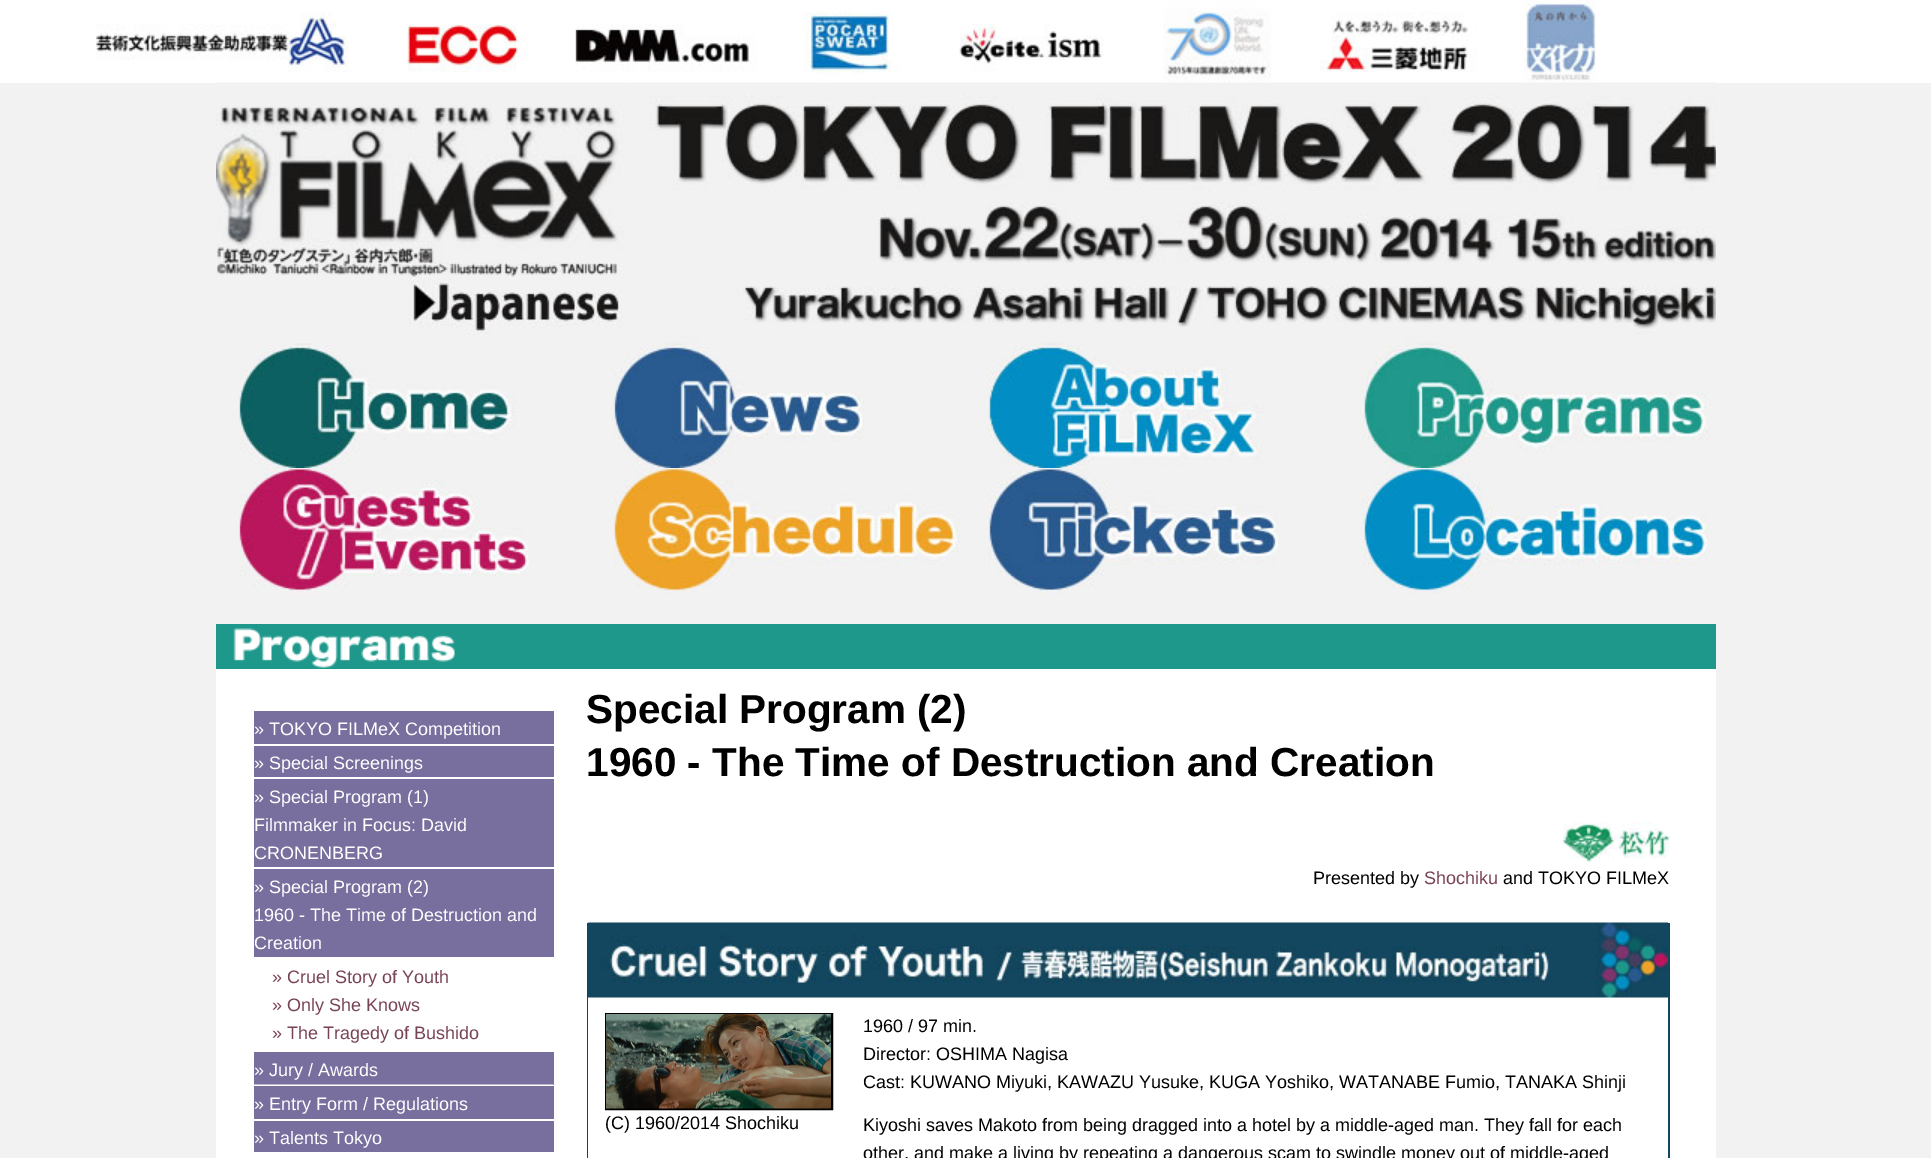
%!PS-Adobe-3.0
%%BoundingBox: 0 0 1931 1158
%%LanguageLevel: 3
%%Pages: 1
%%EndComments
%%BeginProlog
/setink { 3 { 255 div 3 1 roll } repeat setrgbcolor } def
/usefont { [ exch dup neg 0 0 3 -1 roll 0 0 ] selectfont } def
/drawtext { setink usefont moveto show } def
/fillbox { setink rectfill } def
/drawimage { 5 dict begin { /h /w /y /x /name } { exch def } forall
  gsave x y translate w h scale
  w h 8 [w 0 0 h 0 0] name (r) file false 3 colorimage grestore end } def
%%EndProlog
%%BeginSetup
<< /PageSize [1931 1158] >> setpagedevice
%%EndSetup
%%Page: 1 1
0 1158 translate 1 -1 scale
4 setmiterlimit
0 0 1931 1158 242 242 242 fillbox
0 0 1931 83 255 255 255 fillbox
(assets/img1.rgb) 96 0 1500 82 drawimage
(assets/img2.rgb) 216 82 409 197 drawimage
(assets/img3.rgb) 626 82 1090 263 drawimage
(assets/img4.rgb) 408 279 214 57 drawimage
(assets/img5.rgb) 293 343 19 2 drawimage
(assets/img6.rgb) 239 345 277 123 drawimage
(assets/img7.rgb) 612 345 252 123 drawimage
(assets/img8.rgb) 987 345 276 123 drawimage
(assets/img9.rgb) 1362 345 348 123 drawimage
(assets/img10.rgb) 239 468 290 126 drawimage
(assets/img11.rgb) 612 468 348 126 drawimage
(assets/img12.rgb) 987 468 291 126 drawimage
(assets/img13.rgb) 1362 468 348 126 drawimage
216 669 1500 489 255 255 255 fillbox
(assets/img14.rgb) 216 624 1500 45 drawimage
254 711 300 33 120 111 159 fillbox
(» TOKYO FILMeX Competition) 254 735 /LiberationSans-Regular 18 255 255 255 drawtext
254 746 300 31 120 111 159 fillbox
(» Special Screenings) 254 769 /LiberationSans-Regular 18 255 255 255 drawtext
254 779 300 88 120 111 159 fillbox
(» Special Program \(1\)) 254 803 /LiberationSans-Regular 18 255 255 255 drawtext
(Filmmaker in Focus: David) 254 831 /LiberationSans-Regular 18 255 255 255 drawtext
(CRONENBERG) 254 859 /LiberationSans-Regular 18 255 255 255 drawtext
254 869 300 88 120 111 159 fillbox
(» Special Program \(2\)) 254 893 /LiberationSans-Regular 18 255 255 255 drawtext
(1960 - The Time of Destruction and) 254 921 /LiberationSans-Regular 18 255 255 255 drawtext
(Creation) 254 949 /LiberationSans-Regular 18 255 255 255 drawtext
(» Cruel Story of Youth) 272 983 /LiberationSans-Regular 18 121 67 87 drawtext
(» Only She Knows) 272 1011 /LiberationSans-Regular 18 121 67 87 drawtext
(» The Tragedy of Bushido) 272 1039 /LiberationSans-Regular 18 121 67 87 drawtext
254 1052 300 33 120 111 159 fillbox
(» Jury / Awards) 254 1076 /LiberationSans-Regular 18 255 255 255 drawtext
(assets/img15.rgb) 254 1084 300 1 drawimage
254 1086 300 33 120 111 159 fillbox
(» Entry Form / Regulations) 254 1110 /LiberationSans-Regular 18 255 255 255 drawtext
254 1121 300 31 120 111 159 fillbox
(» Talents Tokyo) 254 1144 /LiberationSans-Regular 18 255 255 255 drawtext
(Special Program \(2\)) 586 723 /LiberationSans-Bold 40.5 0 0 0 drawtext
(1960 - The Time of Destruction and Creation) 586 776 /LiberationSans-Bold 40.5 0 0 0 drawtext
(assets/img16.rgb) 1562 822 108 40 drawimage
(Presented by) 1313 884 /LiberationSans-Regular 18 0 0 0 drawtext
(Shochiku) 1424 884 /LiberationSans-Regular 18 121 67 87 drawtext
(and TOKYO FILMeX) 1503 884 /LiberationSans-Regular 18 0 0 0 drawtext
1668 923 2 235 17 70 94 fillbox
587 923 1 235 17 70 94 fillbox
(assets/img17.rgb) 588 922 1080 76 drawimage
0 0 0 setink
2 setlinewidth
606 1014 226 95 rectstroke
(assets/img18.rgb) 606 1014 225 95 drawimage
(\(C\) 1960/2014 Shochiku) 605 1129 /LiberationSans-Regular 18 0 0 0 drawtext
(1960 / 97 min.) 863 1032 /LiberationSans-Regular 18 0 0 0 drawtext
(Director: OSHIMA Nagisa) 863 1060 /LiberationSans-Regular 18 0 0 0 drawtext
(Cast: KUWANO Miyuki, KAWAZU Yusuke, KUGA Yoshiko, WATANABE Fumio, TANAKA Shinji) 863 1088 /LiberationSans-Regular 18 0 0 0 drawtext
(Kiyoshi saves Makoto from being dragged into a hotel by a middle-aged man. They fall for each) 863 1131 /LiberationSans-Regular 18 0 0 0 drawtext
(other, and make a living by repeating a dangerous scam to swindle money out of middle-aged) 863 1159 /LiberationSans-Regular 18 0 0 0 drawtext
showpage
%%EOF
